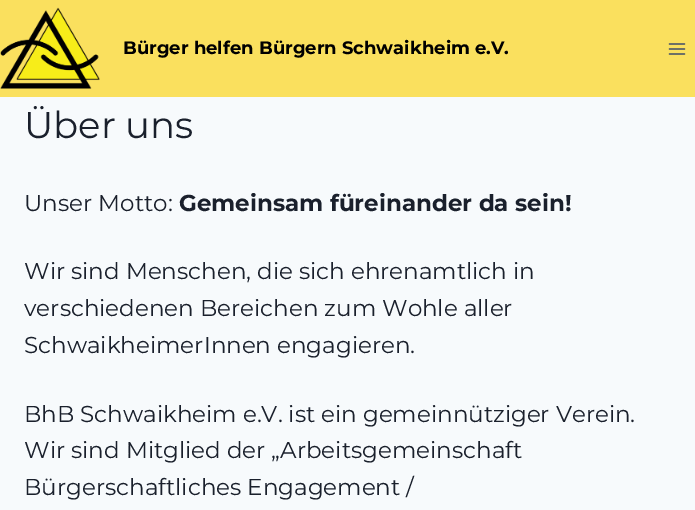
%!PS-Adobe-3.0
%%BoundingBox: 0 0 695 510
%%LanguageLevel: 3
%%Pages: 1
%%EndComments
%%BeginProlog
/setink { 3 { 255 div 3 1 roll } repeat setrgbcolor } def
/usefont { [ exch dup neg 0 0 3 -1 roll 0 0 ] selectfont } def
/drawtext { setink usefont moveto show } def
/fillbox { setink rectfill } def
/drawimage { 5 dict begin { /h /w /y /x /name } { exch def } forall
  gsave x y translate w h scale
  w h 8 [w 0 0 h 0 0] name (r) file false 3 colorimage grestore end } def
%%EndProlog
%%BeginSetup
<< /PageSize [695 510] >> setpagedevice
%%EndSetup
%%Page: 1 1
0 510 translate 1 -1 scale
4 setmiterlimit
0 0 695 510 247 250 252 fillbox
0 0 695 97 250 224 94 fillbox
(assets/img1.rgb) 0 7 100 82 drawimage
(Bürger helfen Bürgern Schwaikheim e.V.) 123 54 /Montserrat-Bold 18 0 0 0 drawtext
(assets/img2.rgb) 668 43 18 12 drawimage
(Über uns) 24 138 /Montserrat-Regular 37 26 32 44 drawtext
(Unser Motto:) 24 211 /Montserrat-Regular 23 26 32 44 drawtext
(Gemeinsam füreinander da sein!) 179 211 /Montserrat-Bold 23 26 32 44 drawtext
(Wir sind Menschen, die sich ehrenamtlich in) 24 279 /Montserrat-Regular 23 26 32 44 drawtext
(verschiedenen Bereichen zum Wohle aller) 24 316 /Montserrat-Regular 23 26 32 44 drawtext
(SchwaikheimerInnen engagieren.) 24 353 /Montserrat-Regular 23 26 32 44 drawtext
(BhB Schwaikheim e.V. ist ein gemeinnütziger Verein.) 24 422 /Montserrat-Regular 23 26 32 44 drawtext
(Wir sind Mitglied der „Arbeitsgemeinschaft) 24 458 /Montserrat-Regular 23 26 32 44 drawtext
(Bürgerschaftliches Engagement /) 24 495 /Montserrat-Regular 23 26 32 44 drawtext
showpage
%%EOF
